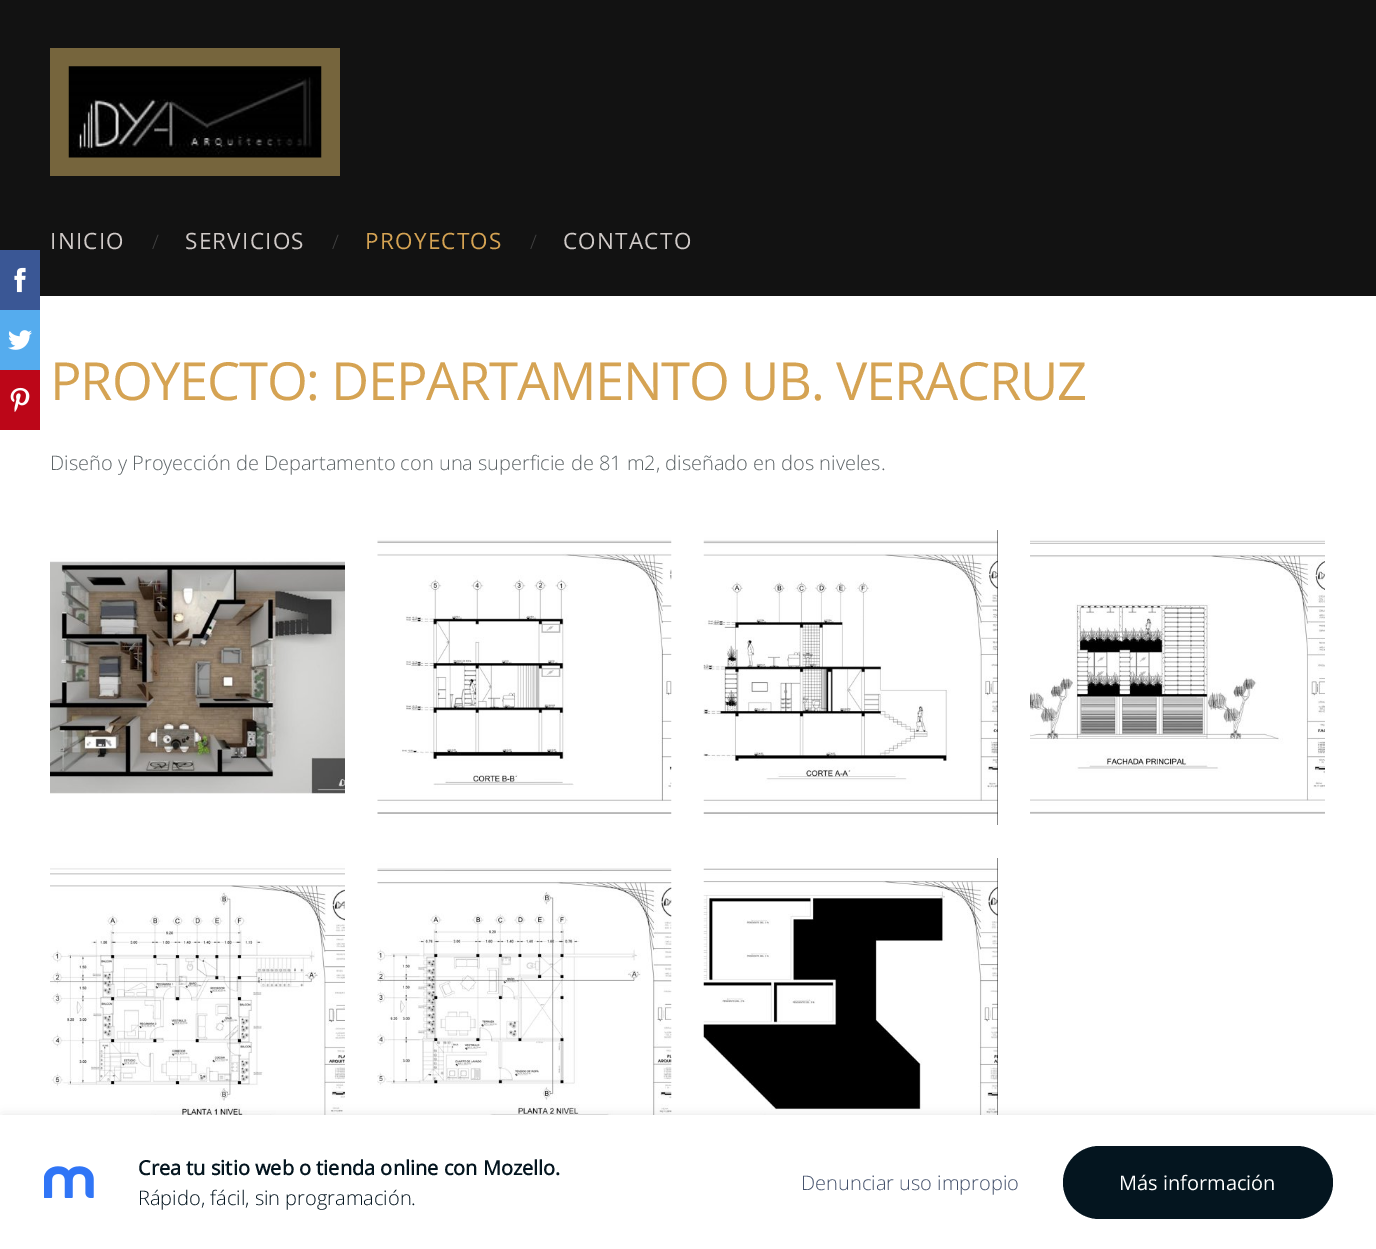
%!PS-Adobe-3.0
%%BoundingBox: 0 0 1376 1249
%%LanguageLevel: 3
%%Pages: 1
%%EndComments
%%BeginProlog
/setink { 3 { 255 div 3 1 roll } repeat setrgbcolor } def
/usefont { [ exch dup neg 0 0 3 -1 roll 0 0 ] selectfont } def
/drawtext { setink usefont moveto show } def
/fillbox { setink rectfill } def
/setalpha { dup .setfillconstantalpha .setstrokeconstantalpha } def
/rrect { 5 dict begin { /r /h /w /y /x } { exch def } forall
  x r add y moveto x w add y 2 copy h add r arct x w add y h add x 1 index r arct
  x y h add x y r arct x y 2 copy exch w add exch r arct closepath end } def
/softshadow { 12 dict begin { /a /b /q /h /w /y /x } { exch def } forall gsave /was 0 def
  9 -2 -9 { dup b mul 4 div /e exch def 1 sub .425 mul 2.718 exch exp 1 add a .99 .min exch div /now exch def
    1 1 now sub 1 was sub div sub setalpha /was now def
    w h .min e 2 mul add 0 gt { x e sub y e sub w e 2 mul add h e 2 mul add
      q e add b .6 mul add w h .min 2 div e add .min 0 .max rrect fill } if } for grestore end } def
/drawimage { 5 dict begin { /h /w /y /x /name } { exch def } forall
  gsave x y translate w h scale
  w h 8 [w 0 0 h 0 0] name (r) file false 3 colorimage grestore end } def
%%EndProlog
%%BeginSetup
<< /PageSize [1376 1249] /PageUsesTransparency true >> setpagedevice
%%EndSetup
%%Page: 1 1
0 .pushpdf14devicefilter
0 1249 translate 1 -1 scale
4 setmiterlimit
0 0 1376 1249 18 18 18 fillbox
50 48 290 128 118 101 61 fillbox
(assets/img1.rgb) 68 66 254 92 drawimage
/OpenSans-Regular 22.5 usefont
208 202 200 setink
50 249 moveto 1.25 0 (INICIO) ashow
(/) 152 249 /OpenSans-Light 20 65 65 65 drawtext
/OpenSans-Regular 22.5 usefont
208 202 200 setink
185 249 moveto 1.25 0 (SERVICIOS) ashow
(/) 332 249 /OpenSans-Light 20 65 65 65 drawtext
/OpenSans-Regular 22.5 usefont
213 163 83 setink
365 249 moveto 1.25 0 (PROYECTOS) ashow
(/) 530 249 /OpenSans-Light 20 65 65 65 drawtext
/OpenSans-Regular 22.5 usefont
208 202 200 setink
563 249 moveto 1.25 0 (CONTACTO) ashow
0 296 1376 819 255 255 255 fillbox
0 250 40 60 58 87 149 fillbox
(assets/img2.rgb) 14 267 12 26 drawimage
0 310 40 60 85 172 238 fillbox
(assets/img3.rgb) 8 330 24 20 drawimage
0 370 40 60 188 6 24 fillbox
(assets/img4.rgb) 10 387 20 25 drawimage
/OpenSans-Regular 52.6 usefont
213 163 83 setink
50 400 moveto -1.3 0 (PROYECTO: DEPARTAMENTO UB. VERACRUZ) ashow
(Diseño y Proyección de Departamento con una superficie de 81 m2, diseñado en dos niveles.) 50 470 /OpenSans-Light 20 94 101 104 drawtext
(assets/img5.rgb) 50 530 295 295 drawimage
(assets/img6.rgb) 377 530 295 295 drawimage
997 530 1 295 18 18 18 fillbox
(assets/img7.rgb) 703 530 295 295 drawimage
(assets/img8.rgb) 1030 530 295 295 drawimage
(assets/img9.rgb) 50 858 295 257 drawimage
(assets/img10.rgb) 377 858 295 257 drawimage
997 858 1 257 18 18 18 fillbox
(assets/img11.rgb) 703 858 295 257 drawimage
0 0 0 setink
3 1118 1371 130 0 6 0.17 softshadow
0 1115 1376 134 255 255 255 fillbox
(assets/img12.rgb) 44 1166 50 32 drawimage
(Crea tu sitio web o tienda online con Mozello.) 138 1175 /OpenSans-Bold 20 4 21 31 drawtext
(Rápido, fácil, sin programación.) 138 1205 /OpenSans-Light 20 4 21 31 drawtext
(Denunciar uso impropio) 801 1190 /OpenSans-Light 20 69 82 108 drawtext
4 21 31 setink
1063 1146 270 73 36.5 rrect fill
(Más información) 1119 1190 /OpenSans-Regular 20 255 255 255 drawtext
.poppdf14devicefilter showpage
%%EOF
